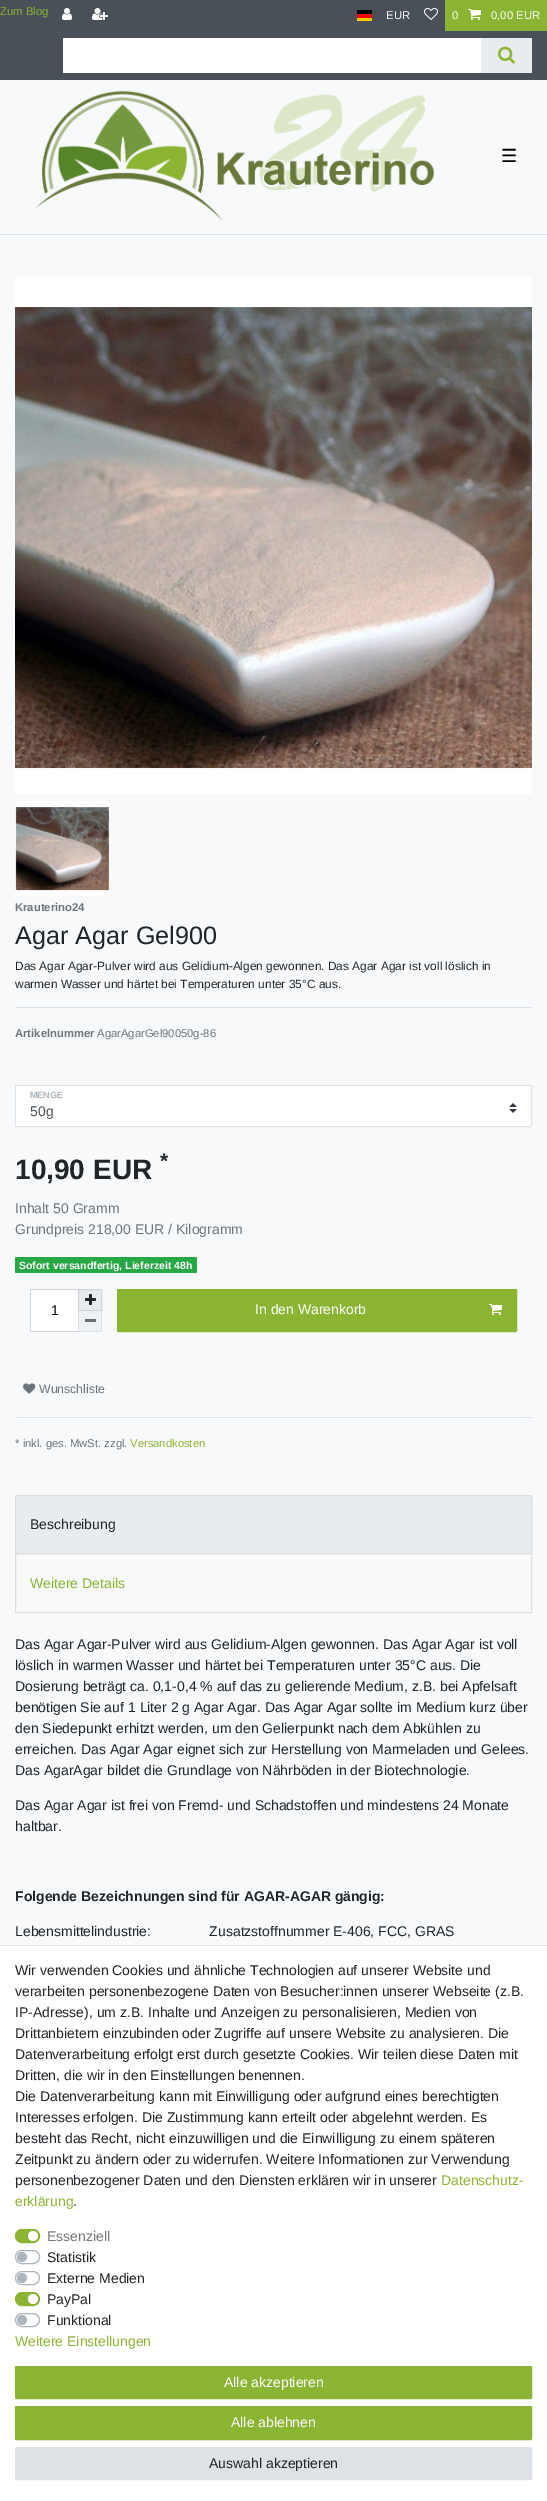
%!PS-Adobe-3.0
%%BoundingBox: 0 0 547 2501
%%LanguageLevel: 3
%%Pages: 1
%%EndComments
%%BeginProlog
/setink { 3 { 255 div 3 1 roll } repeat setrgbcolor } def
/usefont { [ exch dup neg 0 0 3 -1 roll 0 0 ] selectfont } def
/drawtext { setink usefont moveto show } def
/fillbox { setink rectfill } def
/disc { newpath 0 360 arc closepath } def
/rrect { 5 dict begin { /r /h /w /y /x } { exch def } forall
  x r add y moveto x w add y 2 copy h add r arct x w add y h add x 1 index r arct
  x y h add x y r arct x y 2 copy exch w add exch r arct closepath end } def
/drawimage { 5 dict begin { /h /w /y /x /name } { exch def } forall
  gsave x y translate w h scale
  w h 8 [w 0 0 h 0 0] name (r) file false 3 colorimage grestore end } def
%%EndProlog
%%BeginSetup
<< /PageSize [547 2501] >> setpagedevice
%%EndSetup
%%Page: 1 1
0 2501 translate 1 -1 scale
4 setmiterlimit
0 0 547 2501 248 249 250 fillbox
0 0 547 80 73 80 87 fillbox
(Zum Blog) 0 15 /LiberationSans-Regular 11.25 139 180 50 drawtext
(assets/img1.rgb) 62 8 10 12 drawimage
(assets/img2.rgb) 92 8 16 12 drawimage
357 18 15 3 255 204 0 fillbox
357 10 15 4 0 0 0 fillbox
357 14 15 4 255 0 0 fillbox
(EUR) 386 19 /LiberationSans-Regular 11.25 255 255 255 drawtext
(assets/img3.rgb) 424 8 14 12 drawimage
445 0 102 31 139 180 50 fillbox
(0) 452 19 /LiberationSans-Regular 11.25 255 255 255 drawtext
(assets/img4.rgb) 468 9 13 11 drawimage
(0,00 EUR) 491 19 /LiberationSans-Regular 11.25 255 255 255 drawtext
63 38 418 35 255 255 255 fillbox
481 38 51 35 233 236 239 fillbox
(assets/img5.rgb) 498 46 17 18 drawimage
0 234 547 1 222 226 230 fillbox
(assets/img6.rgb) 35 90 400 132 drawimage
(☰) 501 162 /DejaVuSans-Regular 18 0 0 0 drawtext
15 277 517 517 255 255 255 fillbox
(assets/img7.rgb) 15 307 517 462 drawimage
15 801 95 95 255 255 255 fillbox
(assets/img8.rgb) 15 807 95 84 drawimage
(Krauterino24) 15 911 /LiberationSans-Bold 11.25 108 117 125 drawtext
(Agar Agar Gel900) 15 944 /LiberationSans-Regular 25.25 33 37 41 drawtext
(Das Agar Agar-Pulver wird aus Gelidium-Algen gewonnen. Das Agar Agar ist voll löslich in) 15 970 /LiberationSans-Regular 11.9 33 37 41 drawtext
(warmen Wasser und härtet bei Temperaturen unter 35°C aus.) 15 988 /LiberationSans-Regular 11.9 33 37 41 drawtext
15 1007 517 1 222 226 230 fillbox
(Artikelnummer) 15 1037 /LiberationSans-Bold 11.25 108 117 125 drawtext
(AgarAgarGel90050g-86) 97 1037 /LiberationSans-Regular 11.25 108 117 125 drawtext
222 226 230 setink
15.5 1085.5 516 41 1 rrect stroke
255 255 255 setink
16 1086 515 40 1.5 rrect fill
(MENGE) 30 1098 /LiberationSans-Bold 9 173 181 189 drawtext
(assets/img9.rgb) 509 1103 8 10 drawimage
(50g) 30 1116 /LiberationSans-Regular 14 73 80 87 drawtext
(*) 160 1168 /LiberationSans-Bold 21 33 37 41 drawtext
(10,90 EUR) 15 1179 /LiberationSans-Bold 28 33 37 41 drawtext
(Inhalt 50 Gramm) 15 1213 /LiberationSans-Regular 14 108 117 125 drawtext
(Grundpreis 218,00 EUR / Kilogramm) 15 1234 /LiberationSans-Regular 14 108 117 125 drawtext
40 167 69 setink
15 1257 182 16 1.5 rrect fill
(Sofort versandfertig, Lieferzeit 48h) 19 1269 /LiberationSans-Bold 10.5 255 255 255 drawtext
31 1290 47 41 255 255 255 fillbox
30 1289 48 1 206 212 218 fillbox
30 1331 48 1 206 212 218 fillbox
30 1289 1 43 206 212 218 fillbox
(1) 51 1315 /LiberationSans-Regular 14 0 0 0 drawtext
233 236 239 setink
78.5 1289.5 moveto 100.5 1289.5 lineto 101 1289.5 101.5 1290 101.5 1290.5 curveto 101.5 1310.5 lineto 78.5 1310.5 lineto closepath gsave fill grestore
206 212 218 setink
stroke
(assets/img10.rgb) 85 1294 11 11 drawimage
238 241 243 setink
78 1311 moveto 102 1311 lineto 102 1330.5 lineto 102 1331.5 101.5 1332 100.5 1332 curveto 78 1332 lineto closepath fill
101 1311 1 20 221 225 229 fillbox
78 1331 23 1 221 225 229 fillbox
78 1311 1 21 221 225 229 fillbox
85 1319 11 3 105 108 112 fillbox
139 180 50 setink
117.5 1289.5 399 42 1 rrect gsave fill grestore
stroke
(In den Warenkorb) 255 1314 /LiberationSans-Regular 14 255 255 255 drawtext
(assets/img4.rgb) 489 1304 13 11 drawimage
(assets/img11.rgb) 23 1383 13 11 drawimage
(Wunschliste) 39 1393 /LiberationSans-Regular 12.25 108 117 125 drawtext
15 1417 517 1 222 226 230 fillbox
(* inkl. ges. MwSt. zzgl.) 15 1447 /LiberationSans-Regular 11.25 108 117 125 drawtext
(Versandkosten) 130 1447 /LiberationSans-Regular 11.25 139 180 50 drawtext
233 236 239 setink
16.5 1495.5 moveto 530.5 1495.5 lineto 531 1495.5 531.5 1496 531.5 1496.5 curveto 531.5 1553.5 lineto 15.5 1553.5 lineto 15.5 1496.5 lineto 15.5 1496 16 1495.5 16.5 1495.5 curveto closepath gsave fill grestore
221 221 221 setink
stroke
(Beschreibung) 30 1529 /LiberationSans-Regular 14 33 37 41 drawtext
221 221 221 setink
16.5 1553.5 moveto 530.5 1553.5 lineto 531 1553.5 531.5 1554 531.5 1554.5 curveto 531.5 1612.5 lineto 15.5 1612.5 lineto 15.5 1554.5 lineto 15.5 1554 16 1553.5 16.5 1553.5 curveto closepath stroke
(Weitere Details) 30 1588 /LiberationSans-Regular 14 139 180 50 drawtext
(Das Agar Agar-Pulver wird aus Gelidium-Algen gewonnen. Das Agar Agar ist voll) 15 1649 /LiberationSans-Regular 14 33 37 41 drawtext
(löslich in warmen Wasser und härtet bei Temperaturen unter 35°C aus. Die) 15 1670 /LiberationSans-Regular 14 33 37 41 drawtext
(Dosierung beträgt ca. 0,1-0,4 % auf das zu gelierende Medium, z.B. bei Apfelsaft) 15 1691 /LiberationSans-Regular 14 33 37 41 drawtext
(benötigen Sie auf 1 Liter 2 g Agar Agar. Das Agar Agar sollte im Medium kurz über) 15 1712 /LiberationSans-Regular 14 33 37 41 drawtext
(den Siedepunkt erhitzt werden, um den Gelierpunkt nach dem Abkühlen zu) 15 1733 /LiberationSans-Regular 14 33 37 41 drawtext
(erreichen. Das Agar Agar eignet sich zur Herstellung von Marmeladen und Gelees.) 15 1754 /LiberationSans-Regular 14 33 37 41 drawtext
(Das AgarAgar bildet die Grundlage von Nährböden in der Biotechnologie.) 15 1775 /LiberationSans-Regular 14 33 37 41 drawtext
(Das Agar Agar ist frei von Fremd- und Schadstoffen und mindestens 24 Monate) 15 1810 /LiberationSans-Regular 14 33 37 41 drawtext
(haltbar.) 15 1831 /LiberationSans-Regular 14 33 37 41 drawtext
(Folgende Bezeichnungen sind für AGAR-AGAR gängig:) 15 1901 /LiberationSans-Bold 14 33 37 41 drawtext
(Lebensmittelindustrie:               Zusatzstoffnummer E-406, FCC, GRAS) 15 1936 /LiberationSans-Regular 14 33 37 41 drawtext
0 1946 547 555 255 255 255 fillbox
0 1945 547 1 222 226 230 fillbox
(Wir verwenden Cookies und ähnliche Technologien auf unserer Website und) 15 1975 /LiberationSans-Regular 14 33 37 41 drawtext
(verarbeiten personenbezogene Daten von Besucher:innen unserer Webseite \(z.B.) 15 1996 /LiberationSans-Regular 14 33 37 41 drawtext
(IP-Adresse\), um z.B. Inhalte und Anzeigen zu personalisieren, Medien von) 15 2017 /LiberationSans-Regular 14 33 37 41 drawtext
(Drittanbietern einzubinden oder Zugriffe auf unsere Website zu analysieren. Die) 15 2038 /LiberationSans-Regular 14 33 37 41 drawtext
(Datenverarbeitung erfolgt erst durch gesetzte Cookies. Wir teilen diese Daten mit) 15 2059 /LiberationSans-Regular 14 33 37 41 drawtext
(Dritten, die wir in den Einstellungen benennen.) 15 2080 /LiberationSans-Regular 14 33 37 41 drawtext
(Die Datenverarbeitung kann mit Einwilligung oder aufgrund eines berechtigten) 15 2101 /LiberationSans-Regular 14 33 37 41 drawtext
(Interesses erfolgen. Die Zustimmung kann erteilt oder abgelehnt werden. Es) 15 2122 /LiberationSans-Regular 14 33 37 41 drawtext
(besteht das Recht, nicht einzuwilligen und die Einwilligung zu einem späteren) 15 2143 /LiberationSans-Regular 14 33 37 41 drawtext
(Zeitpunkt zu ändern oder zu widerrufen. Weitere Informationen zur Verwendung) 15 2164 /LiberationSans-Regular 14 33 37 41 drawtext
(personenbezogener Daten und den Diensten erklären wir in unserer) 15 2185 /LiberationSans-Regular 14 33 37 41 drawtext
(Datenschutz-) 441 2185 /LiberationSans-Regular 14 139 180 50 drawtext
(erklärung) 15 2206 /LiberationSans-Regular 14 139 180 50 drawtext
(.) 73 2206 /LiberationSans-Regular 14 33 37 41 drawtext
139 180 50 setink
15.5 2229.5 24 13 6.5 rrect gsave fill grestore
stroke
(Essenziell) 47 2241 /LiberationSans-Regular 14 118 118 118 drawtext
255 255 255 setink
33 2236 5 disc fill
173 181 189 setink
15.5 2250.5 24 13 6.5 rrect stroke
(Statistik) 47 2262 /LiberationSans-Regular 14 33 37 41 drawtext
173 181 189 setink
22 2257 5 disc fill
15.5 2271.5 24 13 6.5 rrect stroke
(Externe Medien) 47 2283 /LiberationSans-Regular 14 33 37 41 drawtext
173 181 189 setink
22 2278 5 disc fill
139 180 50 setink
15.5 2292.5 24 13 6.5 rrect gsave fill grestore
stroke
(PayPal) 47 2304 /LiberationSans-Regular 14 33 37 41 drawtext
255 255 255 setink
33 2299 5 disc fill
173 181 189 setink
15.5 2313.5 24 13 6.5 rrect stroke
(Funktional) 47 2325 /LiberationSans-Regular 14 33 37 41 drawtext
173 181 189 setink
22 2320 5 disc fill
(Weitere Einstellungen) 15 2346 /LiberationSans-Regular 14 139 180 50 drawtext
15.5 2366.5 516 32 1 rrect gsave fill grestore
stroke
(Alle akzeptieren) 224 2387 /LiberationSans-Regular 14 255 255 255 drawtext
139 180 50 setink
15.5 2406.5 516 33 1 rrect gsave fill grestore
stroke
(Alle ablehnen) 231 2427 /LiberationSans-Regular 14 255 255 255 drawtext
222 226 230 setink
15.5 2447.5 516 32 1 rrect gsave fill grestore
stroke
(Auswahl akzeptieren) 209 2468 /LiberationSans-Regular 14 33 37 41 drawtext
showpage
%%EOF
